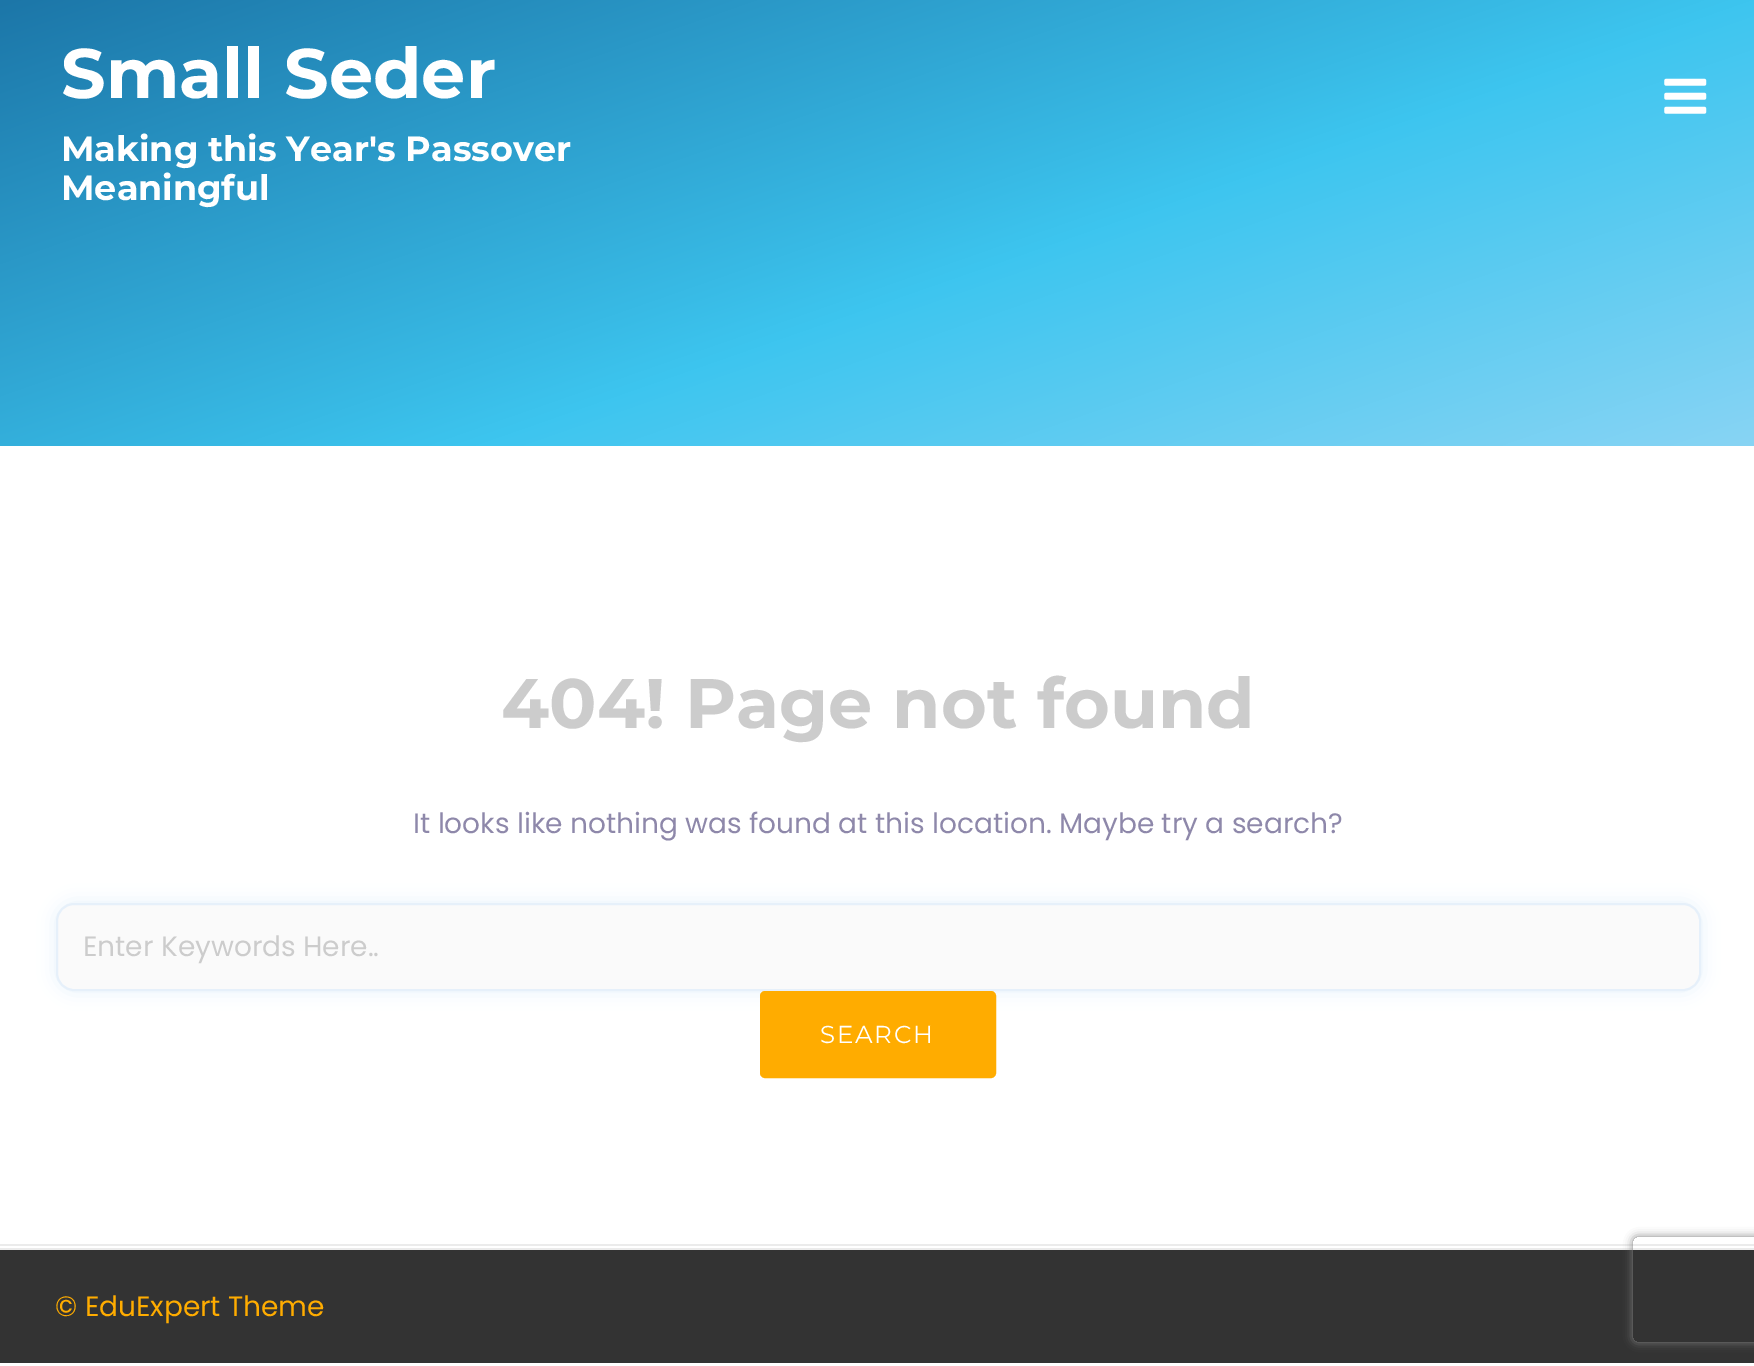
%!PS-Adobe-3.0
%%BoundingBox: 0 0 1754 1366
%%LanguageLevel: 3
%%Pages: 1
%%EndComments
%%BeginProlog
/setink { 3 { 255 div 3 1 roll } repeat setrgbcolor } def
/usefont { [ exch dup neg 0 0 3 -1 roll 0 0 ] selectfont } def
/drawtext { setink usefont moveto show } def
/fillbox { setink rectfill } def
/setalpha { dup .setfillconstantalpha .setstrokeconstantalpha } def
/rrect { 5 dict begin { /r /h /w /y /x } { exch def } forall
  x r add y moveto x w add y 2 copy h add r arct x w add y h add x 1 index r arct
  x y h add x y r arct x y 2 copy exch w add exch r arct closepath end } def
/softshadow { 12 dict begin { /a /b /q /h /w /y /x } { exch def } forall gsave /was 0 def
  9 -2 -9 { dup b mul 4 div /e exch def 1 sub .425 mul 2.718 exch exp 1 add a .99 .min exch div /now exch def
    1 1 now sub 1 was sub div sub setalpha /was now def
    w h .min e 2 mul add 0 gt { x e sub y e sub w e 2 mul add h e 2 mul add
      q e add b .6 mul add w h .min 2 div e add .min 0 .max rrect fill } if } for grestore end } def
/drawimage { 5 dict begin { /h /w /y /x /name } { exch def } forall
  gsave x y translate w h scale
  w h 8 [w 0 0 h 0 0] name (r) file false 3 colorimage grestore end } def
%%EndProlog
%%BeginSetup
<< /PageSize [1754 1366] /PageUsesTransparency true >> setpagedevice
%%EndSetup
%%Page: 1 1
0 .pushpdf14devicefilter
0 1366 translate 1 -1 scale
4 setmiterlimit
0 0 1754 1366 255 255 255 fillbox
gsave 0 0 moveto 1754 0 lineto 1754 446 lineto 0 446 lineto closepath clip newpath
<< /ShadingType 2 /ColorSpace /DeviceRGB /Coords [687 -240 1068 852] /Extend [true true] /Function << /FunctionType 3 /Domain [0 1] /Functions [<< /FunctionType 2 /Domain [0 1] /C0 [0.11 0.463 0.659] /C1 [0.239 0.773 0.937] /N 1 >> << /FunctionType 2 /Domain [0 1] /C0 [0.239 0.773 0.937] /C1 [0.643 0.855 0.965] /N 1 >>] /Bounds [0.5] /Encode [0 1 0 1] >> >> shfill grestore
(Small Seder) 61 98 /Montserrat-Bold 70 255 255 255 drawtext
(Making this Year's Passover) 61 161 /Montserrat-Bold 35 255 255 255 drawtext
(Meaningful) 61 200 /Montserrat-Bold 35 255 255 255 drawtext
(assets/img1.rgb) 1664 78 43 36 drawimage
(404! Page not found) 501 728 /Montserrat-Bold 70 204 204 204 drawtext
(It looks like nothing was found at this location. Maybe try a search?) 413 833 /Poppins-Regular 28 142 136 170 drawtext
230 240 250 setink
56 903 1645 88 18 9 1 softshadow
250 250 250 setink
57 904 1643 86 17 rrect gsave fill grestore
230 240 250 setink
2 setlinewidth
stroke
(Enter Keywords Here..) 83 956 /Poppins-Regular 28 204 204 204 drawtext
255 172 0 setink
761 992 234 85 4 rrect gsave fill grestore
stroke
/Montserrat-Regular 24.5 usefont
255 255 255 setink
820 1043 moveto 1.75 0 (SEARCH) ashow
0 1244 1754 2 235 235 235 fillbox
0 1250 1754 113 51 51 51 fillbox
0 1248 1754 2 235 235 235 fillbox
gsave
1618 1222 moveto 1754 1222 lineto 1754 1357 lineto 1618 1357 lineto closepath 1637 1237 moveto 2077 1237 lineto 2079 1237 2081 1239 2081 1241 curveto 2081 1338 lineto 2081 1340 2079 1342 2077 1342 curveto 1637 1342 lineto 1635 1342 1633 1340 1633 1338 curveto 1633 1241 lineto 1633 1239 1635 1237 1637 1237 curveto closepath eoclip newpath
128 128 128 setink
1633 1237 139 105 4 4.5 1 softshadow
grestore
(© EduExpert Theme) 55 1316 /Poppins-Regular 28 255 172 0 drawtext
.poppdf14devicefilter showpage
%%EOF
